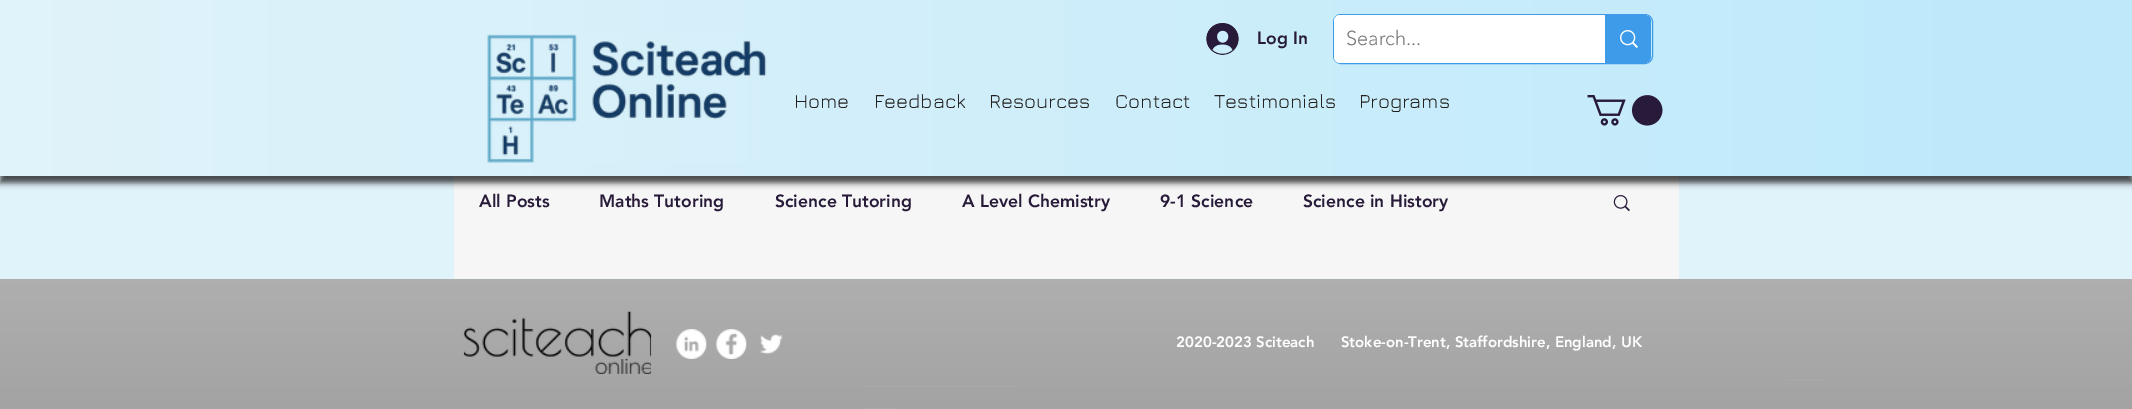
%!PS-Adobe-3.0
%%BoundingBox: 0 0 2132 409
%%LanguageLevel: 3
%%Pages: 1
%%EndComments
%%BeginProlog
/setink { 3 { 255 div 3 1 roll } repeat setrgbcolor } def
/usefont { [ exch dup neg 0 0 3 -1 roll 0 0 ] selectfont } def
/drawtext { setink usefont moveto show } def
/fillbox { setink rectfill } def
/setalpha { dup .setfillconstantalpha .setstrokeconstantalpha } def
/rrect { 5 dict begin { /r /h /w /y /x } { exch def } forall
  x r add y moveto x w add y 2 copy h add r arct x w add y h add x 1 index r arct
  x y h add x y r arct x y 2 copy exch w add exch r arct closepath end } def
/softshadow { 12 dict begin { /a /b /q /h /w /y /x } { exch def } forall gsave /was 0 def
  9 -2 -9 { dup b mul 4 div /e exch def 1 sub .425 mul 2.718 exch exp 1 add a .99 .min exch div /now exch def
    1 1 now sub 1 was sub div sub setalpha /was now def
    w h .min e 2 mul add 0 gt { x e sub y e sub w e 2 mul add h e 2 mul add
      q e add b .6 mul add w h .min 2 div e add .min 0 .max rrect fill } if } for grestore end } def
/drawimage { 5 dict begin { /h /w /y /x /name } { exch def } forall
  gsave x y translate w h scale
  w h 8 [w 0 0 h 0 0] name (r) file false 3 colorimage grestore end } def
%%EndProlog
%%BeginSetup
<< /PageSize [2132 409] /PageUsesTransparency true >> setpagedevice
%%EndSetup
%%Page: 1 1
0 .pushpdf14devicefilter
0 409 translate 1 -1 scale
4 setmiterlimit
0 0 2132 409 225 243 250 fillbox
454 176 1225 102 246 246 246 fillbox
0 0 0 setink
0 6 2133 177 0 3 0.7 softshadow
gsave 0 0 moveto 2132 0 lineto 2132 176 lineto 0 176 lineto closepath clip newpath
<< /ShadingType 2 /ColorSpace /DeviceRGB /Coords [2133 88 0 88] /Extend [true true] /Function << /FunctionType 2 /Domain [0 1] /C0 [0.741 0.914 0.984] /C1 [0.882 0.953 0.98] /N 1 >> >> shfill grestore
(assets/img1.rgb) 487 34 280 129 drawimage
(assets/img2.rgb) 1206 23 33 32 drawimage
(Log In) 1257 44 /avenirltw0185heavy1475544-Black 17.5 40 26 57 drawtext
61 155 233 setink
1333.5 14.5 319 49 7.5 rrect stroke
255 255 255 setink
1334 15 317 48 6 rrect fill
(Search...) 1346 45 /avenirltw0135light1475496-Light 20 120 120 120 drawtext
61 155 233 setink
1605 15 moveto 1645 15 lineto 1648.5 15 1651 17.5 1651 21 curveto 1651 57 lineto 1651 60.5 1648.5 63 1645 63 curveto 1605 63 lineto closepath fill
(assets/img3.rgb) 1620 30 18 18 drawimage
(Home) 794 108 /Jura-Regular 20 34 33 32 drawtext
(Feedback) 874 108 /Jura-Regular 20 34 33 32 drawtext
(Resources) 989 108 /Jura-Regular 20 34 33 32 drawtext
(Contact) 1115 108 /Jura-Regular 20 34 33 32 drawtext
(Testimonials) 1214 108 /Jura-Regular 20 34 33 32 drawtext
(Programs) 1359 108 /Jura-Regular 20 34 33 32 drawtext
(assets/img4.rgb) 1587 95 76 31 drawimage
(All Posts) 479 207 /avenirltw0185heavy1475544-Black 17.5 40 26 57 drawtext
(Maths Tutoring) 599 207 /avenirltw0185heavy1475544-Black 17.5 40 26 57 drawtext
(Science Tutoring) 775 207 /avenirltw0185heavy1475544-Black 17.5 40 26 57 drawtext
(A Level Chemistry) 962 207 /avenirltw0185heavy1475544-Black 17.5 40 26 57 drawtext
(9-1 Science) 1160 207 /avenirltw0185heavy1475544-Black 17.5 40 26 57 drawtext
(Science in History) 1303 207 /avenirltw0185heavy1475544-Black 17.5 40 26 57 drawtext
(assets/img5.rgb) 1613 195 17 17 drawimage
454 278 1225 1 237 245 247 fillbox
0 279 2132 130 147 146 146 fillbox
(assets/img6.rgb) 0 279 2132 130 drawimage
(assets/img7.rgb) 463 311 189 63 drawimage
(assets/img8.rgb) 676 329 31 30 drawimage
(assets/img9.rgb) 716 329 31 30 drawimage
(assets/img10.rgb) 760 334 23 20 drawimage
(2020-2023 Sciteach      Stoke-on-Trent, Staffordshire, England, UK) 1176 347 /avenirltw0185heavy1475544-Black 15 255 255 255 drawtext
1785 379 43 1 169 169 169 fillbox
863 386 153 1 169 169 169 fillbox
863 408 33 1 169 169 169 fillbox
.poppdf14devicefilter showpage
%%EOF
